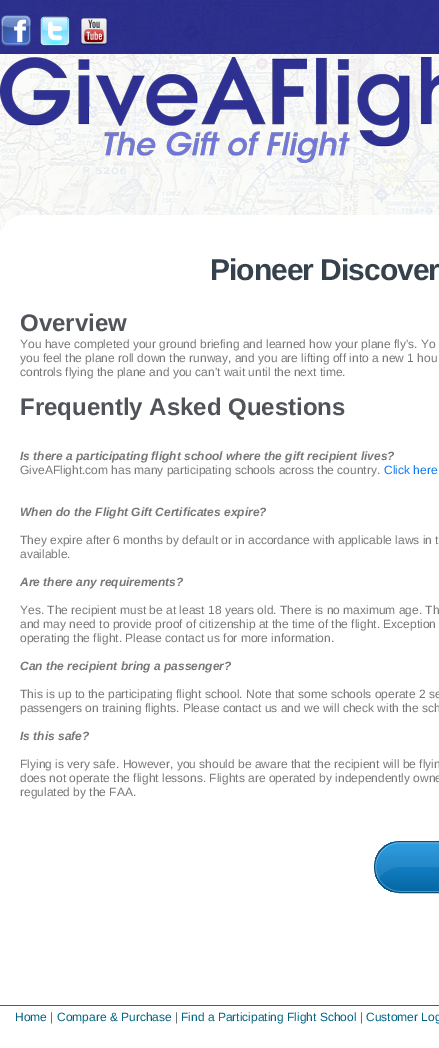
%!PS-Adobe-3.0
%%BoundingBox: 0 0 439 1048
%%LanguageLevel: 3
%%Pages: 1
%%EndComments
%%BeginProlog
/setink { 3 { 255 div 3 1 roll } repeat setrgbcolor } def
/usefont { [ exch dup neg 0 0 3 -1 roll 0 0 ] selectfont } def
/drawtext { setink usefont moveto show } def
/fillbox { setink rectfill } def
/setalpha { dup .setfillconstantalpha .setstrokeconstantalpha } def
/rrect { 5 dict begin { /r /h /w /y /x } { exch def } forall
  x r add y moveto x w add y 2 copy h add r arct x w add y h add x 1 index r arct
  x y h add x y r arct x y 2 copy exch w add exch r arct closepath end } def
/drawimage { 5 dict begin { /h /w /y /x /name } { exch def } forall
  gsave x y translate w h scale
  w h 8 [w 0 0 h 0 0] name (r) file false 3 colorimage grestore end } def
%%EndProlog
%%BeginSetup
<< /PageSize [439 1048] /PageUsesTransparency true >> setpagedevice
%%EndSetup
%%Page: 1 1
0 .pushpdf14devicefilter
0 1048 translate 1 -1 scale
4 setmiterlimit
0 0 439 1048 255 255 255 fillbox
(assets/img1.rgb) 0 0 439 240 drawimage
(assets/img2.rgb) 1 15 30 31 drawimage
(assets/img3.rgb) 40 16 30 30 drawimage
(assets/img4.rgb) 80 18 28 28 drawimage
(assets/img5.rgb) 0 57 439 106 drawimage
25 215 moveto 439 215 lineto 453 215 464 226 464 240 curveto 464 913 lineto 0 913 lineto 0 240 lineto 0 226 11 215 25 215 curveto closepath fill
/LiberationSans-Bold 30 usefont
53 65 76 setink
210 280 moveto -1 0 (Pioneer Discover) ashow
(Overview) 20 331 /LiberationSans-Bold 24 80 83 90 drawtext
(You have completed your ground briefing and learned how your plane fly's. Yo) 20 348 /LiberationSans-Regular 12 119 119 119 drawtext
(you feel the plane roll down the runway, and you are lifting off into a new 1 hou) 20 362 /LiberationSans-Regular 12 119 119 119 drawtext
(controls flying the plane and you can't wait until the next time.) 20 376 /LiberationSans-Regular 12 119 119 119 drawtext
(Frequently Asked Questions) 20 415 /LiberationSans-Bold 24 80 83 90 drawtext
(Is there a participating flight school where the gift recipient lives?) 20 460 /LiberationSans-BoldItalic 12 119 119 119 drawtext
(GiveAFlight.com has many participating schools across the country.) 20 474 /LiberationSans-Regular 12 119 119 119 drawtext
(Click here) 384 474 /LiberationSans-Regular 12 13 119 240 drawtext
(When do the Flight Gift Certificates expire?) 20 516 /LiberationSans-BoldItalic 12 119 119 119 drawtext
(They expire after 6 months by default or in accordance with applicable laws in t) 20 544 /LiberationSans-Regular 12 119 119 119 drawtext
(available.) 20 558 /LiberationSans-Regular 12 119 119 119 drawtext
(Are there any requirements?) 20 586 /LiberationSans-BoldItalic 12 119 119 119 drawtext
(Yes. The recipient must be at least 18 years old. There is no maximum age. Th) 20 614 /LiberationSans-Regular 12 119 119 119 drawtext
(and may need to provide proof of citizenship at the time of the flight. Exception) 20 628 /LiberationSans-Regular 12 119 119 119 drawtext
(operating the flight. Please contact us for more information.) 20 642 /LiberationSans-Regular 12 119 119 119 drawtext
(Can the recipient bring a passenger?) 20 670 /LiberationSans-BoldItalic 12 119 119 119 drawtext
(This is up to the participating flight school. Note that some schools operate 2 se) 20 698 /LiberationSans-Regular 12 119 119 119 drawtext
(passengers on training flights. Please contact us and we will check with the sch) 20 712 /LiberationSans-Regular 12 119 119 119 drawtext
(Is this safe?) 20 740 /LiberationSans-BoldItalic 12 119 119 119 drawtext
(Flying is very safe. However, you should be aware that the recipient will be flyin) 20 768 /LiberationSans-Regular 12 119 119 119 drawtext
(does not operate the flight lessons. Flights are operated by independently owne) 20 782 /LiberationSans-Regular 12 119 119 119 drawtext
(regulated by the FAA.) 20 796 /LiberationSans-Regular 12 119 119 119 drawtext
gsave
374 841 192 52 26 rrect clip newpath
gsave 375 842 moveto 439 842 lineto 439 892 lineto 375 892 lineto closepath clip newpath
<< /ShadingType 2 /ColorSpace /DeviceRGB /Coords [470 842 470 892] /Extend [true true] /Function << /FunctionType 2 /Domain [0 1] /C0 [0.114 0.584 0.878] /C1 [0.024 0.404 0.643] /N 1 >> >> shfill grestore
grestore
0.3 setalpha
255 255 255 setink
375.5 842.5 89 49 24.5 rrect stroke
0.08 setalpha
400 867 moveto 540 867 lineto 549 867 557 872 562 879 curveto 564 876 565 872 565 867 curveto 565 853 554 842 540 842 curveto 400 842 lineto 386 842 375 853 375 867 curveto 375 872 376 876 378 879 curveto 383 872 391 867 400 867 curveto closepath fill
1 setalpha
9 81 126 setink
374.5 841.5 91 51 25.5 rrect stroke
0 1005 439 1 84 91 101 fillbox
(Home) 15 1021 /LiberationSans-Regular 12 0 99 131 drawtext
(|) 50 1021 /LiberationSans-Regular 12 108 113 120 drawtext
(Compare & Purchase) 57 1021 /LiberationSans-Regular 12 0 99 131 drawtext
(|) 175 1021 /LiberationSans-Regular 12 108 113 120 drawtext
(Find a Participating Flight School) 181 1021 /LiberationSans-Regular 12 0 99 131 drawtext
(|) 360 1021 /LiberationSans-Regular 12 108 113 120 drawtext
(Customer Log) 366 1021 /LiberationSans-Regular 12 0 99 131 drawtext
.poppdf14devicefilter showpage
%%EOF
